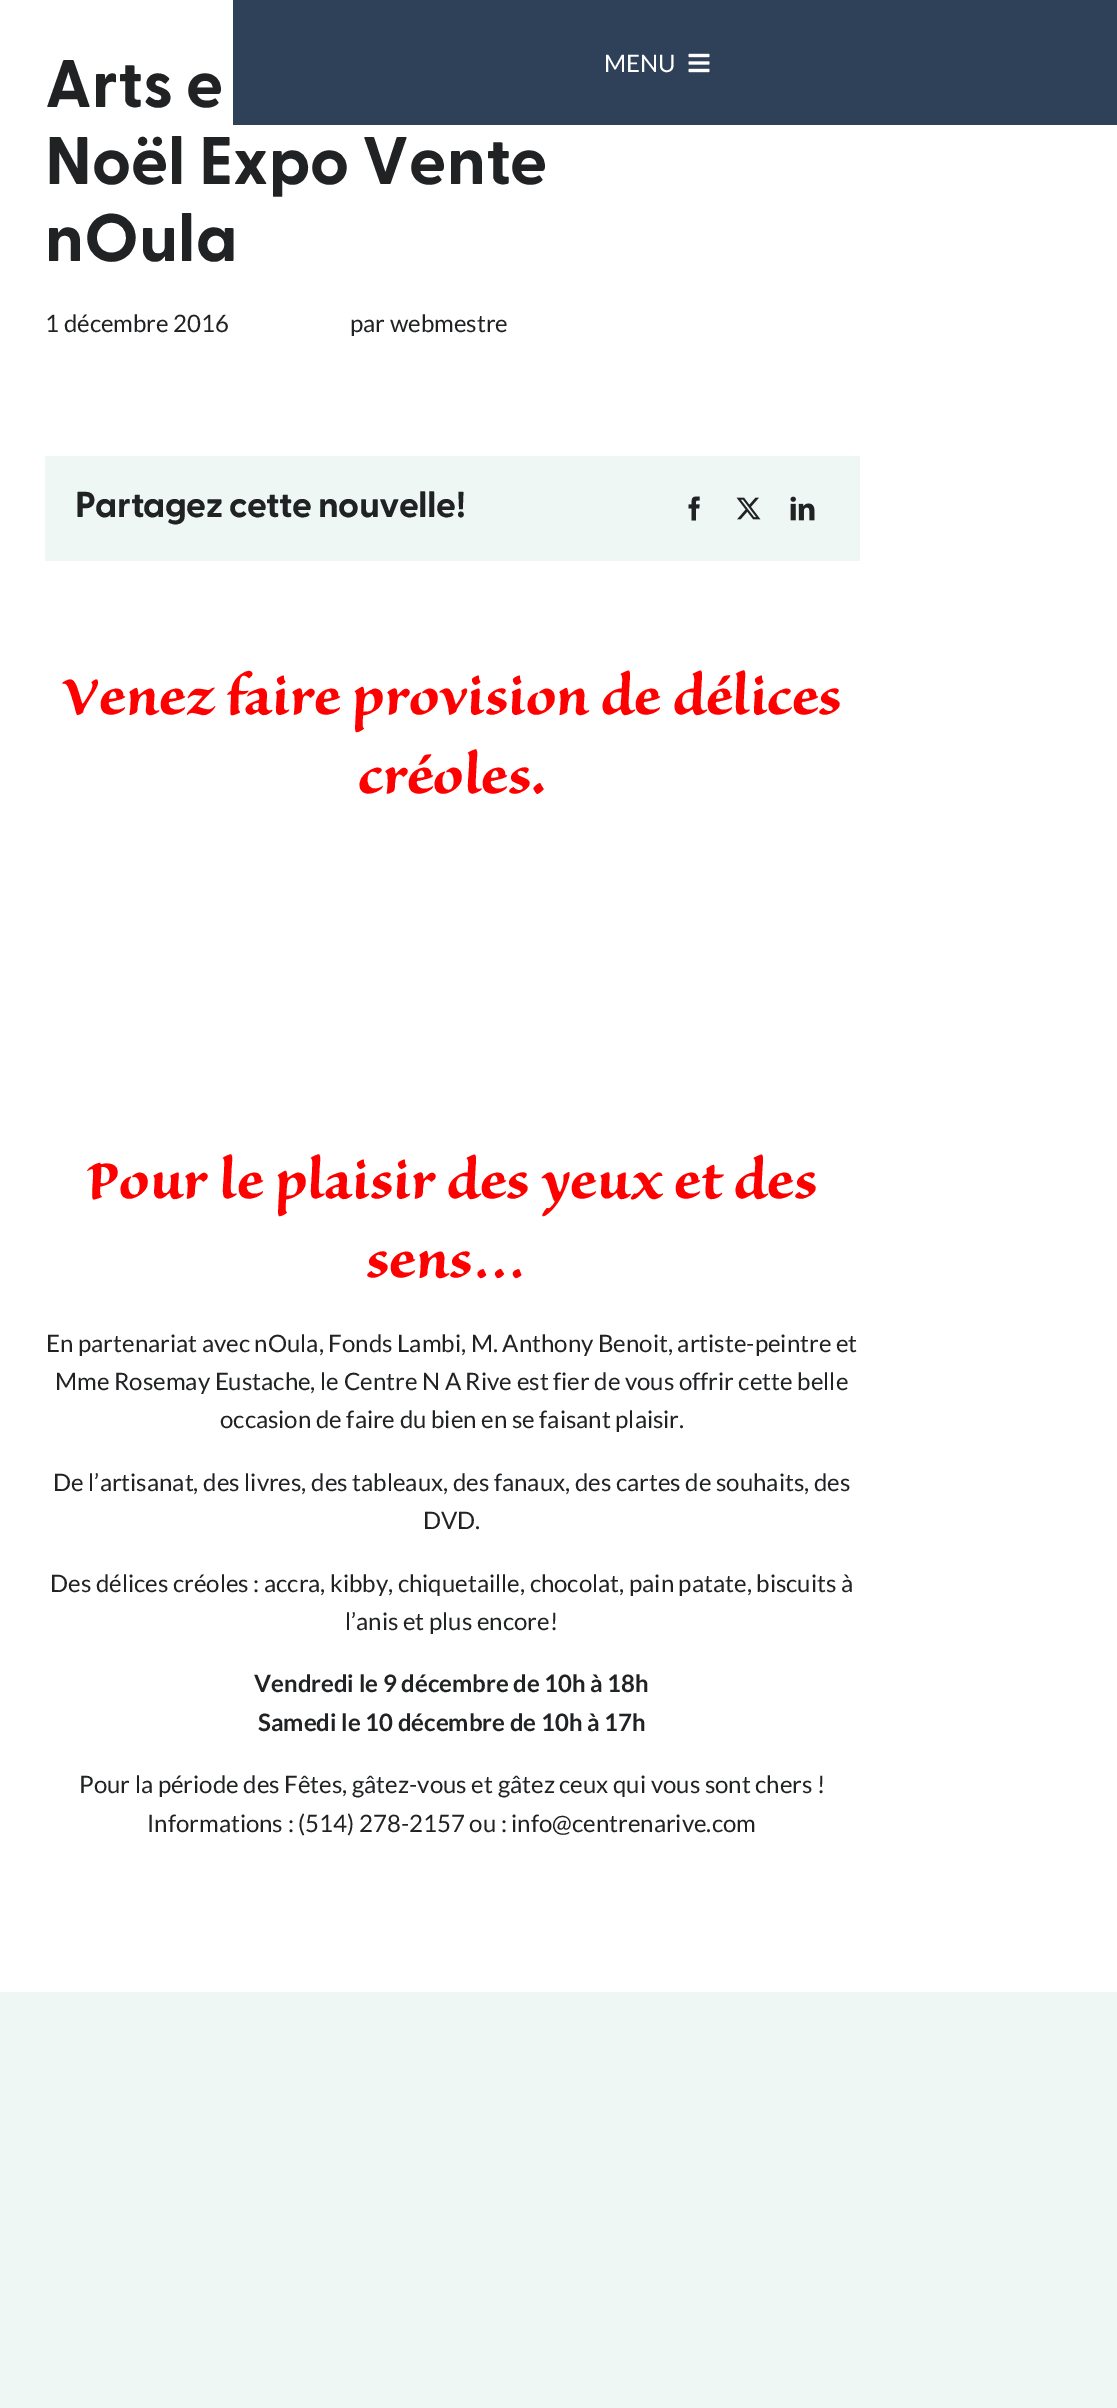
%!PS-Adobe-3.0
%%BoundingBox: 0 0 1117 2408
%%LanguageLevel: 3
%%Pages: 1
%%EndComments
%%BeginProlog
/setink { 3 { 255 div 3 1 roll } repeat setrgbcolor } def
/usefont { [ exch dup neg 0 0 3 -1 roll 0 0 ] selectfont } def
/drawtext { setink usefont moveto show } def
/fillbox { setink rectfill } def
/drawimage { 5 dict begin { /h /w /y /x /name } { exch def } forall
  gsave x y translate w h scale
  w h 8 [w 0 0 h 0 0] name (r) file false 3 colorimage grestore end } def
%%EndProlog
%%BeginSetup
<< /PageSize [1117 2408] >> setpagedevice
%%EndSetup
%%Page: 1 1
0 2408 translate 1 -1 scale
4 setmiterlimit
0 0 1117 2408 255 255 255 fillbox
(Arts e) 45 107 /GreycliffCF-Bold 67.25 32 34 36 drawtext
(Noël Expo Vente) 45 184 /GreycliffCF-Bold 67.25 32 34 36 drawtext
(nOula) 45 261 /GreycliffCF-Bold 67.25 32 34 36 drawtext
(1 décembre 2016) 45 332 /Lato-Regular 24 32 34 36 drawtext
(par webmestre) 350 332 /Lato-Regular 24 32 34 36 drawtext
233 0 884 125 47 65 89 fillbox
(MENU) 604 72 /Lato-Regular 24 255 255 255 drawtext
(assets/img1.rgb) 688 53 22 20 drawimage
45 456 815 105 239 247 245 fillbox
/GreycliffCF-Bold 36 usefont
32 34 36 setink
75 517 moveto -0.5 0 (Partagez cette nouvelle!) ashow
(assets/img2.rgb) 688 496 12 25 drawimage
(assets/img3.rgb) 736 497 25 23 drawimage
(assets/img4.rgb) 790 496 25 25 drawimage
(Venez faire provision de délices) 61 714 /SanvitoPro-Bold 66 255 0 0 drawtext
(créoles.) 358 793 /SanvitoPro-Bold 66 255 0 0 drawtext
(Pour le plaisir des yeux et des) 86 1198 /SanvitoPro-Bold 66 255 0 0 drawtext
(sens…) 366 1277 /SanvitoPro-Bold 66 255 0 0 drawtext
(En partenariat avec nOula, Fonds Lambi, M. Anthony Benoit, artiste-peintre et) 46 1352 /Lato-Regular 24 32 34 36 drawtext
(Mme Rosemay Eustache, le Centre N A Rive est fier de vous offrir cette belle) 55 1390 /Lato-Regular 24 32 34 36 drawtext
(occasion de faire du bien en se faisant plaisir.) 220 1428 /Lato-Regular 24 32 34 36 drawtext
(De l’artisanat, des livres, des tableaux, des fanaux, des cartes de souhaits, des) 53 1491 /Lato-Regular 24 32 34 36 drawtext
(DVD.) 423 1529 /Lato-Regular 24 32 34 36 drawtext
(Des délices créoles : accra, kibby, chiquetaille, chocolat, pain patate, biscuits à) 50 1592 /Lato-Regular 24 32 34 36 drawtext
(l’anis et plus encore!) 345 1630 /Lato-Regular 24 32 34 36 drawtext
(Vendredi le 9 décembre de 10h à 18h) 254 1692 /Lato-Bold 24 32 34 36 drawtext
(Samedi le 10 décembre de 10h à 17h) 258 1731 /Lato-Bold 24 32 34 36 drawtext
(Pour la période des Fêtes, gâtez-vous et gâtez ceux qui vous sont chers !) 79 1793 /Lato-Regular 24 32 34 36 drawtext
(Informations : \(514\) 278-2157 ou : info@centrenarive.com) 147 1832 /Lato-Regular 24 32 34 36 drawtext
0 1992 1117 416 239 247 245 fillbox
showpage
%%EOF
